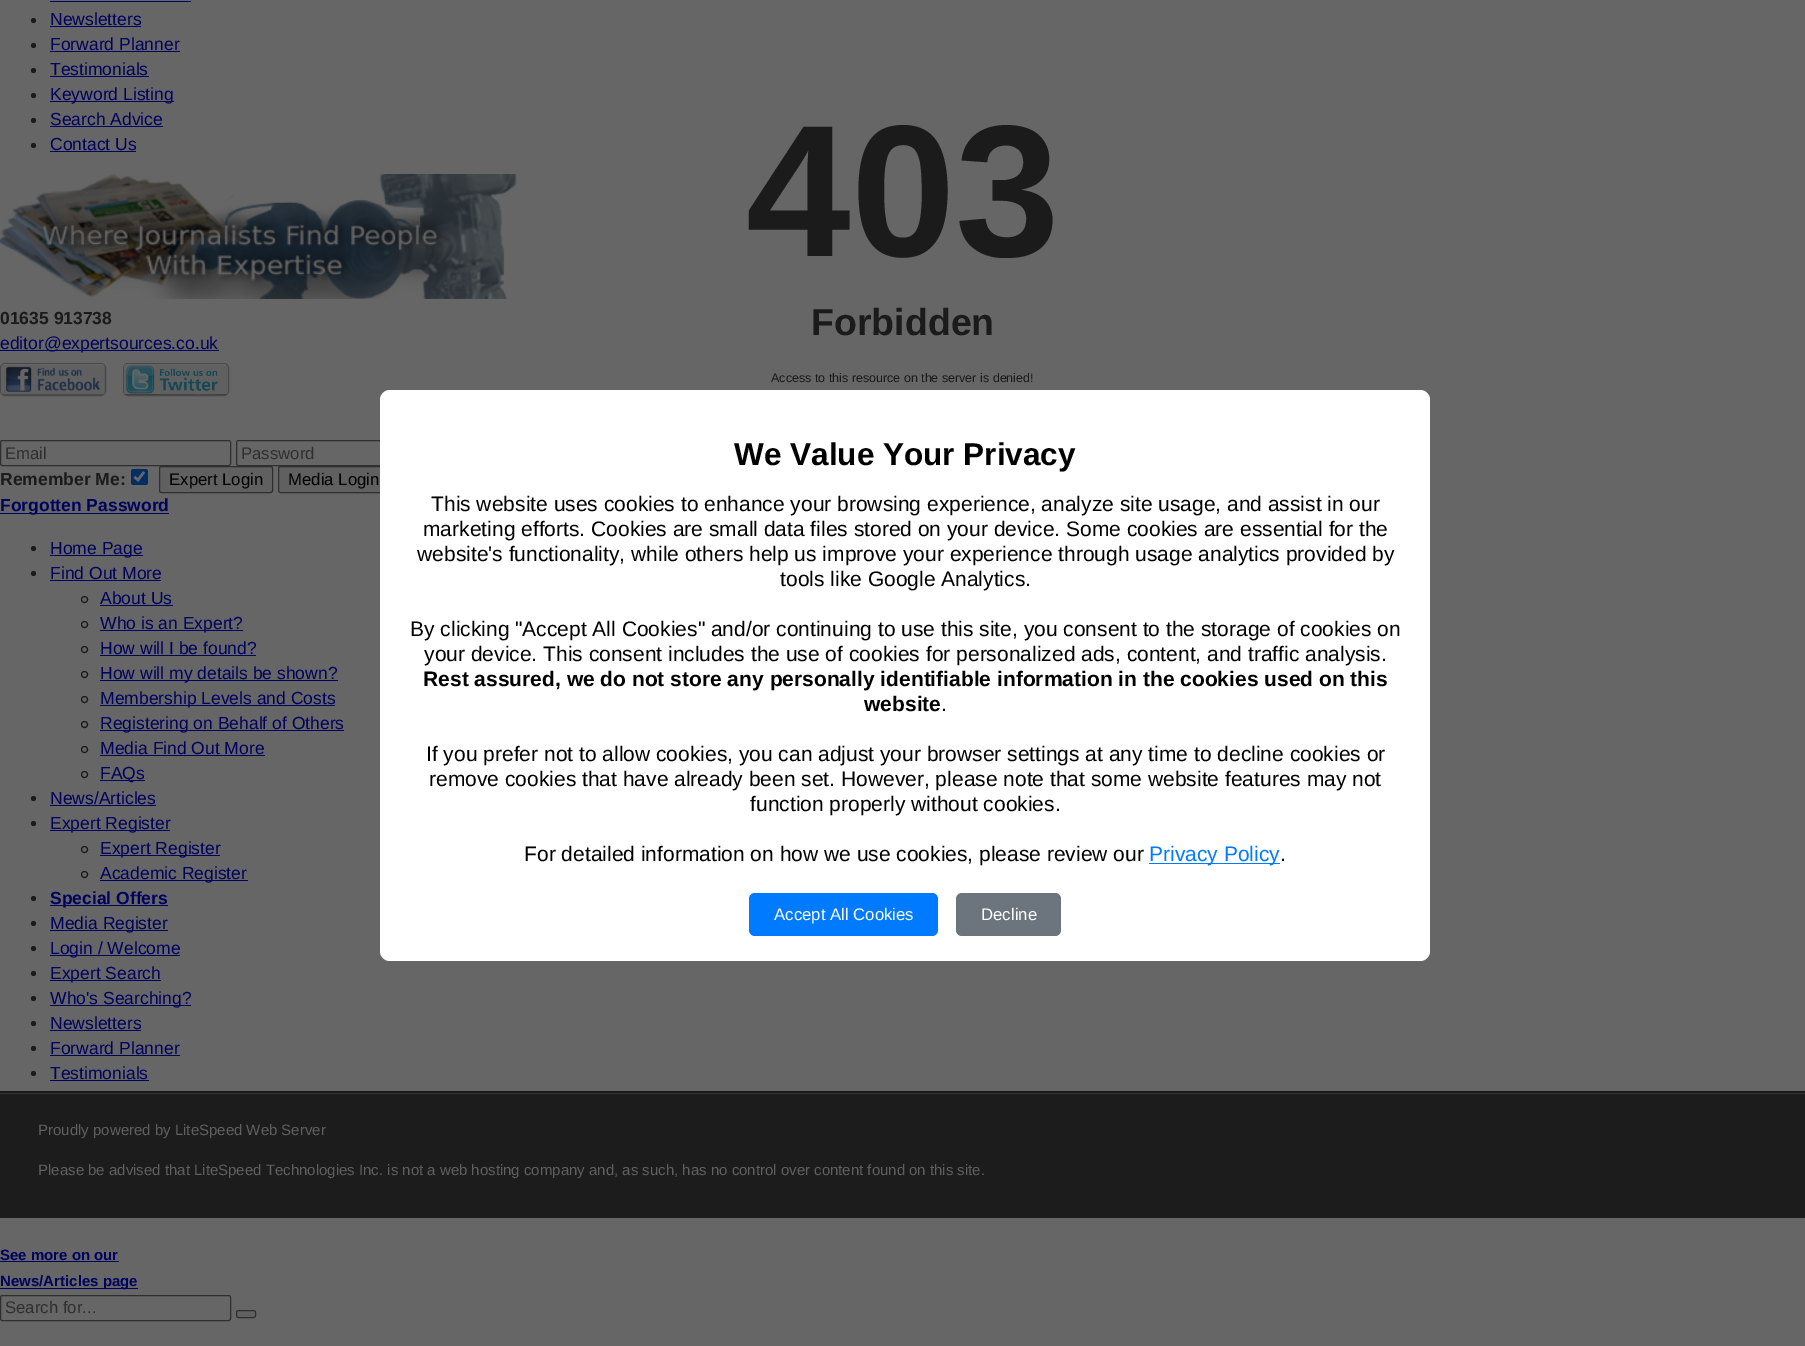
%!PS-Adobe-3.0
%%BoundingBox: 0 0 1805 1346
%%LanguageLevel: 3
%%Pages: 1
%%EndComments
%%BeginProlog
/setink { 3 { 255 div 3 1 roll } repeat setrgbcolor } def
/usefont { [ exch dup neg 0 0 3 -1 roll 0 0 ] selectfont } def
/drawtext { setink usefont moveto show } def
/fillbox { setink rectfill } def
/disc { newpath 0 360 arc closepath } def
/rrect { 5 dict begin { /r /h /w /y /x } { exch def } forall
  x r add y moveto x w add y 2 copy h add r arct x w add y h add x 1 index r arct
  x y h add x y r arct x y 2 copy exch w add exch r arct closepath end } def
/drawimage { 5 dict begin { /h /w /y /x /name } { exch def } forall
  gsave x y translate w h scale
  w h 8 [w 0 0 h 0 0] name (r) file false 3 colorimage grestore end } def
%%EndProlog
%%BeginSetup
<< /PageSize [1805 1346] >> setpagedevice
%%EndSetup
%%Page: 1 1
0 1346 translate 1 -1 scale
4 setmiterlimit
0 0 1805 1346 102 102 102 fillbox
50 1 141 1 0 0 95 fillbox
27 27 27 setink
33.5 20.5 2.5 disc fill
(Newsletters) 50 25 /LiberationSans-Regular 17.5 0 0 95 drawtext
50 26 91 1 0 0 95 fillbox
27 27 27 setink
33.5 45.5 2.5 disc fill
(Forward Planner) 50 50 /LiberationSans-Regular 17.5 0 0 95 drawtext
50 51 130 1 0 0 95 fillbox
27 27 27 setink
33.5 70.5 2.5 disc fill
(Testimonials) 50 75 /LiberationSans-Regular 17.5 0 0 95 drawtext
50 76 99 1 0 0 95 fillbox
27 27 27 setink
33.5 95.5 2.5 disc fill
50 101 124 1 0 0 95 fillbox
(Keyword Listing) 50 100 /LiberationSans-Regular 17.5 0 0 95 drawtext
27 27 27 setink
33.5 120.5 2.5 disc fill
(Search Advice) 50 125 /LiberationSans-Regular 17.5 0 0 95 drawtext
50 126 113 1 0 0 95 fillbox
27 27 27 setink
33.5 145.5 2.5 disc fill
(Contact Us) 50 150 /LiberationSans-Regular 17.5 0 0 95 drawtext
50 151 86 1 0 0 95 fillbox
(assets/img1.rgb) 0 174 517 125 drawimage
(01635 913738) 0 324 /LiberationSans-Bold 17.5 27 27 27 drawtext
0 350 219 1 0 0 95 fillbox
(editor@expertsources.co.uk) 0 349 /LiberationSans-Regular 17.5 0 0 95 drawtext
72 72 72 setink
0.5 363.5 105 32 4.5 rrect stroke
123.5 363.5 105 32 4.5 rrect stroke
(assets/img2.rgb) 1 364 104 31 drawimage
(assets/img3.rgb) 123 364 105 31 drawimage
47 47 47 setink
0.5 440.5 230 25 2 rrect stroke
(Email) 5 459 /LiberationSans-Regular 16.75 47 47 47 drawtext
236.5 440.5 231 25 2 rrect stroke
(Password) 241 459 /LiberationSans-Regular 16.75 47 47 47 drawtext
(Remember Me:) 0 485 /LiberationSans-Bold 17.5 27 27 27 drawtext
0 47 102 setink
131 469 17 16 2.5 rrect fill
102 102 102 setink
2.6 setlinewidth
134.5 477 moveto 138 480 lineto 144 472 lineto stroke
96 96 96 setink
159.5 466.5 113 26 2 rrect gsave fill grestore
47 47 47 setink
1 setlinewidth
stroke
(Expert Login) 169 485 /LiberationSans-Regular 16.75 0 0 0 drawtext
96 96 96 setink
278.5 466.5 110 26 2 rrect gsave fill grestore
47 47 47 setink
stroke
(Media Login) 288 485 /LiberationSans-Regular 16.75 0 0 0 drawtext
0 513 169 1 0 0 95 fillbox
(Forgotten Password) 0 511 /LiberationSans-Bold 17.5 0 0 95 drawtext
(403) 746 256 /LiberationSans-Bold 188 27 27 27 drawtext
(Forbidden) 811 335 /LiberationSans-Bold 37.5 27 27 27 drawtext
(Access to this resource on the server is denied!) 771 382 /LiberationSans-Regular 12.5 27 27 27 drawtext
0 1092 1805 126 28 28 28 fillbox
0 1093 1805 1 50 50 50 fillbox
0 1091 1805 1 24 24 24 fillbox
(Proudly powered by LiteSpeed Web Server) 38 1135 /LiberationSans-Regular 15 96 96 96 drawtext
(Please be advised that LiteSpeed Technologies Inc. is not a web hosting company and, as such, has no control over content found on this site.) 38 1175 /LiberationSans-Regular 15 96 96 96 drawtext
(See more on our) 0 1260 /LiberationSans-Bold 15 0 0 95 drawtext
0 1261 119 1 0 0 95 fillbox
0 1288 138 1 0 0 95 fillbox
(News/Articles page) 0 1286 /LiberationSans-Bold 15 0 0 95 drawtext
27 27 27 setink
33.5 548.5 2.5 disc fill
50 555 93 1 0 0 95 fillbox
(Home Page) 50 554 /LiberationSans-Regular 17.5 0 0 95 drawtext
27 27 27 setink
33.5 573.5 2.5 disc fill
(Find Out More) 50 579 /LiberationSans-Regular 17.5 0 0 95 drawtext
50 580 111 1 0 0 95 fillbox
27 27 27 setink
84.5 599.5 3 disc stroke
(About Us) 100 604 /LiberationSans-Regular 17.5 0 0 95 drawtext
100 605 73 1 0 0 95 fillbox
27 27 27 setink
84.5 624.5 3 disc stroke
100 630 143 1 0 0 95 fillbox
(Who is an Expert?) 100 629 /LiberationSans-Regular 17.5 0 0 95 drawtext
27 27 27 setink
84.5 649.5 3 disc stroke
(How will I be found?) 100 654 /LiberationSans-Regular 17.5 0 0 95 drawtext
100 655 156 1 0 0 95 fillbox
27 27 27 setink
84.5 674.5 3 disc stroke
100 680 238 1 0 0 95 fillbox
(How will my details be shown?) 100 679 /LiberationSans-Regular 17.5 0 0 95 drawtext
27 27 27 setink
84.5 699.5 3 disc stroke
100 705 235 1 0 0 95 fillbox
(Membership Levels and Costs) 100 704 /LiberationSans-Regular 17.5 0 0 95 drawtext
27 27 27 setink
84.5 724.5 3 disc stroke
100 730 244 1 0 0 95 fillbox
(Registering on Behalf of Others) 100 729 /LiberationSans-Regular 17.5 0 0 95 drawtext
27 27 27 setink
84.5 749.5 3 disc stroke
(Media Find Out More) 100 754 /LiberationSans-Regular 17.5 0 0 95 drawtext
100 755 165 1 0 0 95 fillbox
27 27 27 setink
84.5 774.5 3 disc stroke
100 780 45 1 0 0 95 fillbox
(FAQs) 100 779 /LiberationSans-Regular 17.5 0 0 95 drawtext
27 27 27 setink
33.5 798.5 2.5 disc fill
(News/Articles) 50 804 /LiberationSans-Regular 17.5 0 0 95 drawtext
50 805 106 1 0 0 95 fillbox
27 27 27 setink
33.5 823.5 2.5 disc fill
50 830 120 1 0 0 95 fillbox
(Expert Register) 50 829 /LiberationSans-Regular 17.5 0 0 95 drawtext
27 27 27 setink
84.5 849.5 3 disc stroke
100 855 120 1 0 0 95 fillbox
(Expert Register) 100 854 /LiberationSans-Regular 17.5 0 0 95 drawtext
27 27 27 setink
84.5 874.5 3 disc stroke
100 880 148 1 0 0 95 fillbox
(Academic Register) 100 879 /LiberationSans-Regular 17.5 0 0 95 drawtext
27 27 27 setink
33.5 898.5 2.5 disc fill
50 905 118 1 0 0 95 fillbox
(Special Offers) 50 904 /LiberationSans-Bold 17.5 0 0 95 drawtext
27 27 27 setink
33.5 923.5 2.5 disc fill
50 930 118 1 0 0 95 fillbox
(Media Register) 50 929 /LiberationSans-Regular 17.5 0 0 95 drawtext
27 27 27 setink
33.5 948.5 2.5 disc fill
50 955 130 1 0 0 95 fillbox
(Login / Welcome) 50 954 /LiberationSans-Regular 17.5 0 0 95 drawtext
27 27 27 setink
33.5 973.5 2.5 disc fill
50 980 111 1 0 0 95 fillbox
(Expert Search) 50 979 /LiberationSans-Regular 17.5 0 0 95 drawtext
27 27 27 setink
33.5 998.5 2.5 disc fill
50 1005 141 1 0 0 95 fillbox
(Who's Searching?) 50 1004 /LiberationSans-Regular 17.5 0 0 95 drawtext
27 27 27 setink
33.5 1023.5 2.5 disc fill
(Newsletters) 50 1029 /LiberationSans-Regular 17.5 0 0 95 drawtext
50 1030 91 1 0 0 95 fillbox
27 27 27 setink
33.5 1048.5 2.5 disc fill
(Forward Planner) 50 1054 /LiberationSans-Regular 17.5 0 0 95 drawtext
50 1055 130 1 0 0 95 fillbox
27 27 27 setink
33.5 1073.5 2.5 disc fill
(Testimonials) 50 1079 /LiberationSans-Regular 17.5 0 0 95 drawtext
50 1080 99 1 0 0 95 fillbox
47 47 47 setink
0.5 1295.5 230 25 2 rrect stroke
(Search for...) 5 1313 /LiberationSans-Regular 16.75 47 47 47 drawtext
96 96 96 setink
236.5 1310.5 19 7 2 rrect gsave fill grestore
47 47 47 setink
stroke
255 255 255 setink
380 390 1050 571 10 rrect fill
(We Value Your Privacy) 734 465 /LiberationSans-Bold 31.5 0 0 0 drawtext
(This website uses cookies to enhance your browsing experience, analyze site usage, and assist in our) 431 511 /LiberationSans-Regular 21 0 0 0 drawtext
(marketing efforts. Cookies are small data files stored on your device. Some cookies are essential for the) 423 536 /LiberationSans-Regular 21 0 0 0 drawtext
(website's functionality, while others help us improve your experience through usage analytics provided by) 417 561 /LiberationSans-Regular 21 0 0 0 drawtext
(tools like Google Analytics.) 780 586 /LiberationSans-Regular 21 0 0 0 drawtext
(By clicking "Accept All Cookies" and/or continuing to use this site, you consent to the storage of cookies on) 410 636 /LiberationSans-Regular 21 0 0 0 drawtext
(your device. This consent includes the use of cookies for personalized ads, content, and traffic analysis.) 424 661 /LiberationSans-Regular 21 0 0 0 drawtext
(Rest assured, we do not store any personally identifiable information in the cookies used on this) 423 686 /LiberationSans-Bold 21 0 0 0 drawtext
(website) 864 711 /LiberationSans-Bold 21 0 0 0 drawtext
(.) 941 711 /LiberationSans-Regular 21 0 0 0 drawtext
(If you prefer not to allow cookies, you can adjust your browser settings at any time to decline cookies or) 426 761 /LiberationSans-Regular 21 0 0 0 drawtext
(remove cookies that have already been set. However, please note that some website features may not) 429 786 /LiberationSans-Regular 21 0 0 0 drawtext
(function properly without cookies.) 750 811 /LiberationSans-Regular 21 0 0 0 drawtext
(For detailed information on how we use cookies, please review our) 524 861 /LiberationSans-Regular 21 0 0 0 drawtext
1149 863 131 1 0 123 255 fillbox
(Privacy Policy) 1149 861 /LiberationSans-Regular 21 0 123 255 drawtext
(.) 1280 861 /LiberationSans-Regular 21 0 0 0 drawtext
0 123 255 setink
749 893 189 43 6 rrect fill
(Accept All Cookies) 774 920 /LiberationSans-Regular 16.75 255 255 255 drawtext
108 117 125 setink
956 893 105 43 6 rrect fill
(Decline) 981 920 /LiberationSans-Regular 16.75 255 255 255 drawtext
showpage
%%EOF
